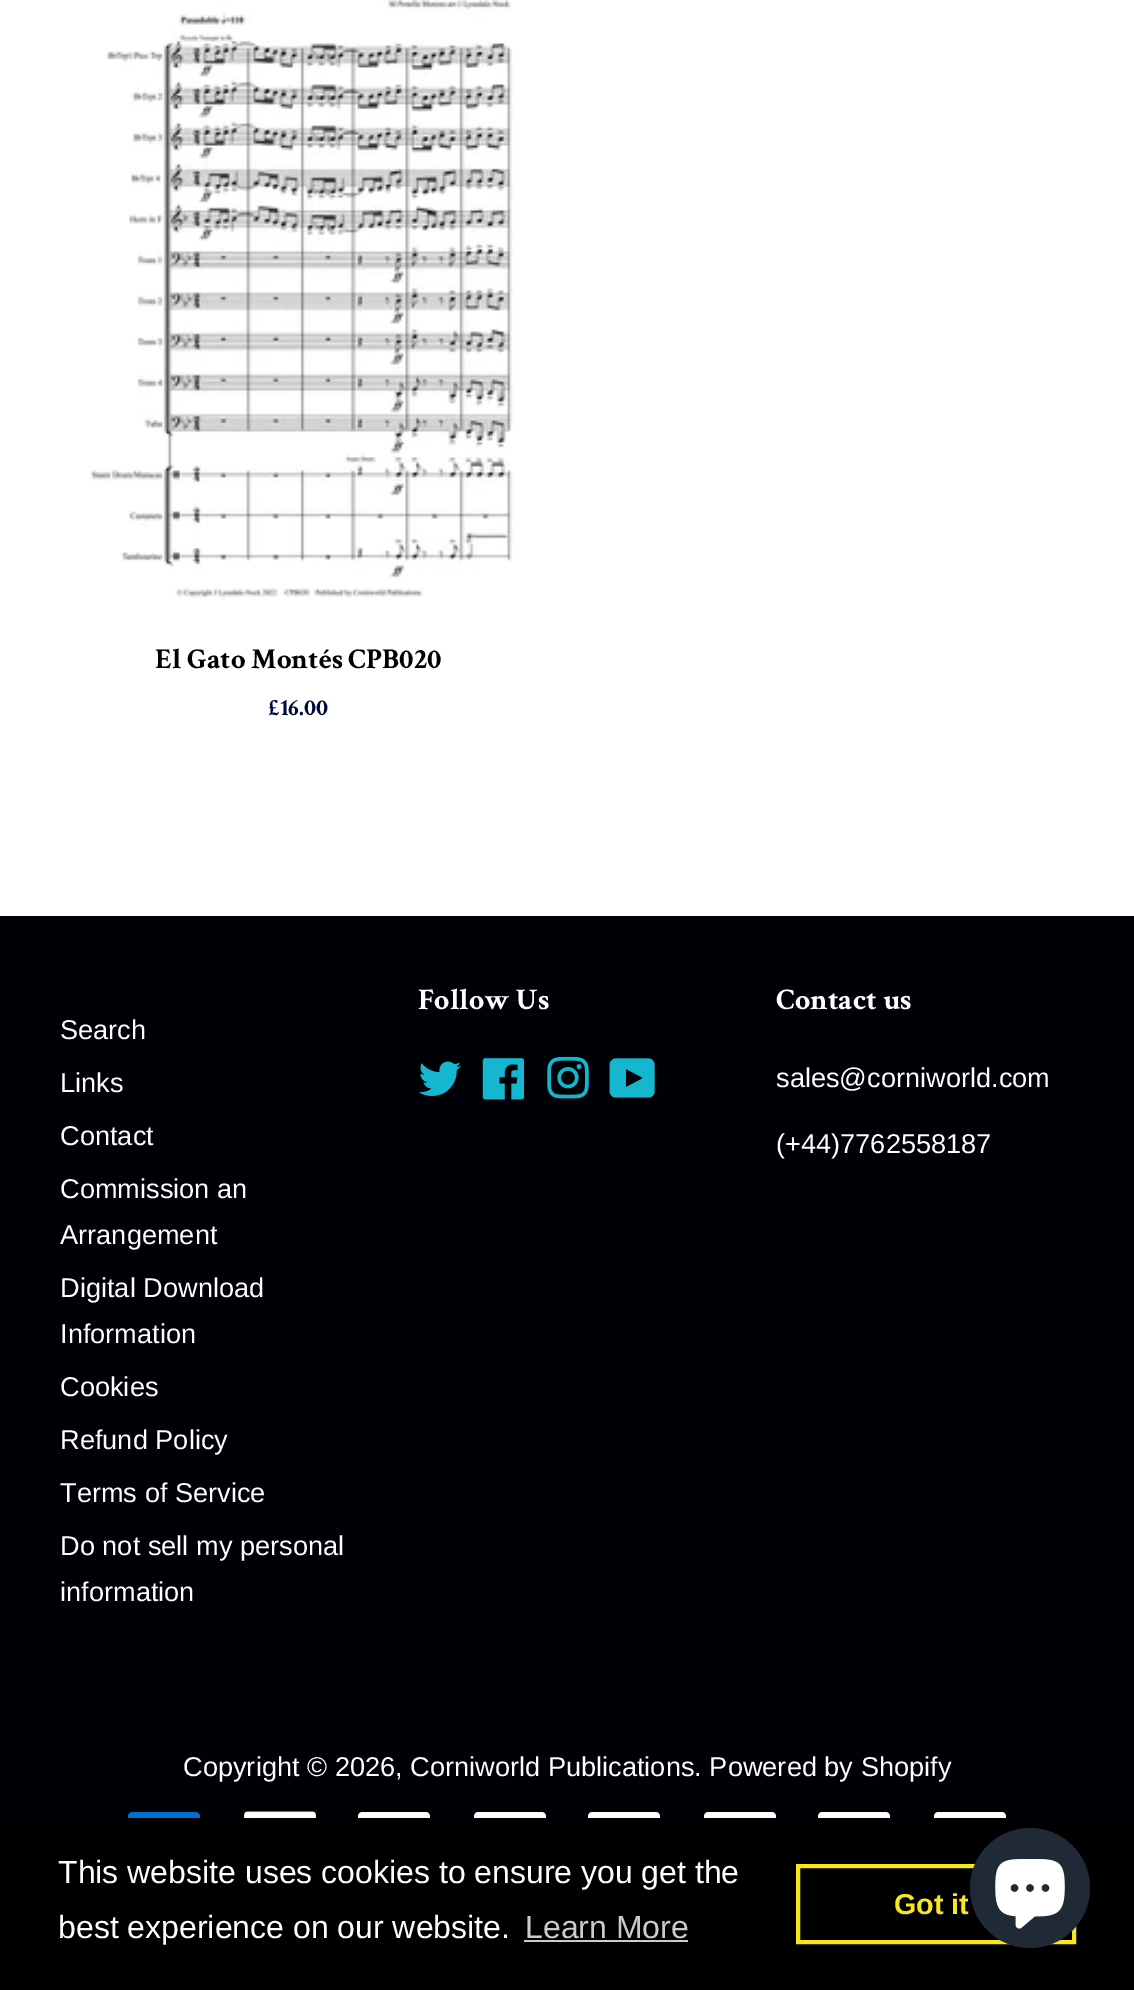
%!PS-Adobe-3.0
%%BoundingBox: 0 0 1134 1990
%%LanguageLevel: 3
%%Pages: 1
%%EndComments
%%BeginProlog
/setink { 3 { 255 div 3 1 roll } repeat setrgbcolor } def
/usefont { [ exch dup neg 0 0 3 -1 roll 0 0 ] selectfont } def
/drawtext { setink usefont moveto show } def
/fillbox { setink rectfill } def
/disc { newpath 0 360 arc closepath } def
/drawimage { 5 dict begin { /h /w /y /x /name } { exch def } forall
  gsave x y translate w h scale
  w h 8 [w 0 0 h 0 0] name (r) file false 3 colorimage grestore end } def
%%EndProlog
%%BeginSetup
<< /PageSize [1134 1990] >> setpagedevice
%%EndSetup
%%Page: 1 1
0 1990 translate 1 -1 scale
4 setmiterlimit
0 0 1134 1990 255 255 255 fillbox
(assets/img1.rgb) 90 0 423 600 drawimage
(El Gato Montés CPB020) 155 668 /CrimsonText-Bold 28.75 0 1 6 drawtext
(£16.00) 268 715 /CrimsonText-Bold 24 0 10 57 drawtext
0 916 1134 902 0 1 6 fillbox
(Search) 60 1039 /LiberationSans-Regular 27.2 255 255 255 drawtext
(Links) 60 1092 /LiberationSans-Regular 27.2 255 255 255 drawtext
(Contact) 60 1145 /LiberationSans-Regular 27.2 255 255 255 drawtext
(Commission an) 60 1198 /LiberationSans-Regular 27.2 255 255 255 drawtext
(Arrangement) 60 1244 /LiberationSans-Regular 27.2 255 255 255 drawtext
(Digital Download) 60 1297 /LiberationSans-Regular 27.2 255 255 255 drawtext
(Information) 60 1343 /LiberationSans-Regular 27.2 255 255 255 drawtext
(Cookies) 60 1396 /LiberationSans-Regular 27.2 255 255 255 drawtext
(Refund Policy) 60 1449 /LiberationSans-Regular 27.2 255 255 255 drawtext
(Terms of Service) 60 1502 /LiberationSans-Regular 27.2 255 255 255 drawtext
(Do not sell my personal) 60 1555 /LiberationSans-Regular 27.2 255 255 255 drawtext
(information) 60 1601 /LiberationSans-Regular 27.2 255 255 255 drawtext
(Follow Us) 418 1009 /CrimsonText-Bold 30 255 255 255 drawtext
(assets/img2.rgb) 418 1061 43 35 drawimage
(assets/img3.rgb) 482 1058 43 42 drawimage
(assets/img4.rgb) 547 1056 42 43 drawimage
(assets/img5.rgb) 609 1058 46 40 drawimage
(Contact us) 776 1009 /CrimsonText-Bold 30 255 255 255 drawtext
(sales@corniworld.com) 776 1087 /LiberationSans-Regular 27.2 255 255 255 drawtext
(\(+44\)7762558187) 776 1153 /LiberationSans-Regular 27.2 255 255 255 drawtext
(Copyright © 2026, Corniworld Publications. Powered by Shopify) 183 1776 /LiberationSans-Regular 27.2 255 255 255 drawtext
(assets/img6.rgb) 128 1812 72 6 drawimage
(assets/img7.rgb) 243 1810 74 8 drawimage
(assets/img8.rgb) 358 1812 72 6 drawimage
(assets/img9.rgb) 474 1812 73 6 drawimage
(assets/img8.rgb) 588 1812 72 6 drawimage
(assets/img8.rgb) 704 1812 72 6 drawimage
(assets/img8.rgb) 818 1812 72 6 drawimage
(assets/img8.rgb) 934 1812 72 6 drawimage
0 1818 1134 172 0 0 0 fillbox
(This website uses cookies to ensure you get the) 58 1883 /LiberationSans-Regular 32 255 255 255 drawtext
(best experience on our website.) 58 1938 /LiberationSans-Regular 32 255 255 255 drawtext
(Learn More) 525 1938 /LiberationSans-Regular 32 204 204 204 drawtext
524 1940 164 2 204 204 204 fillbox
248 231 28 setink
4 setlinewidth
798 1866 276 76 rectstroke
(Got it) 894 1914 /LiberationSans-Bold 28.75 248 231 28 drawtext
32 42 54 setink
1030 1888 60 disc fill
(assets/img10.rgb) 995 1859 70 70 drawimage
showpage
%%EOF
